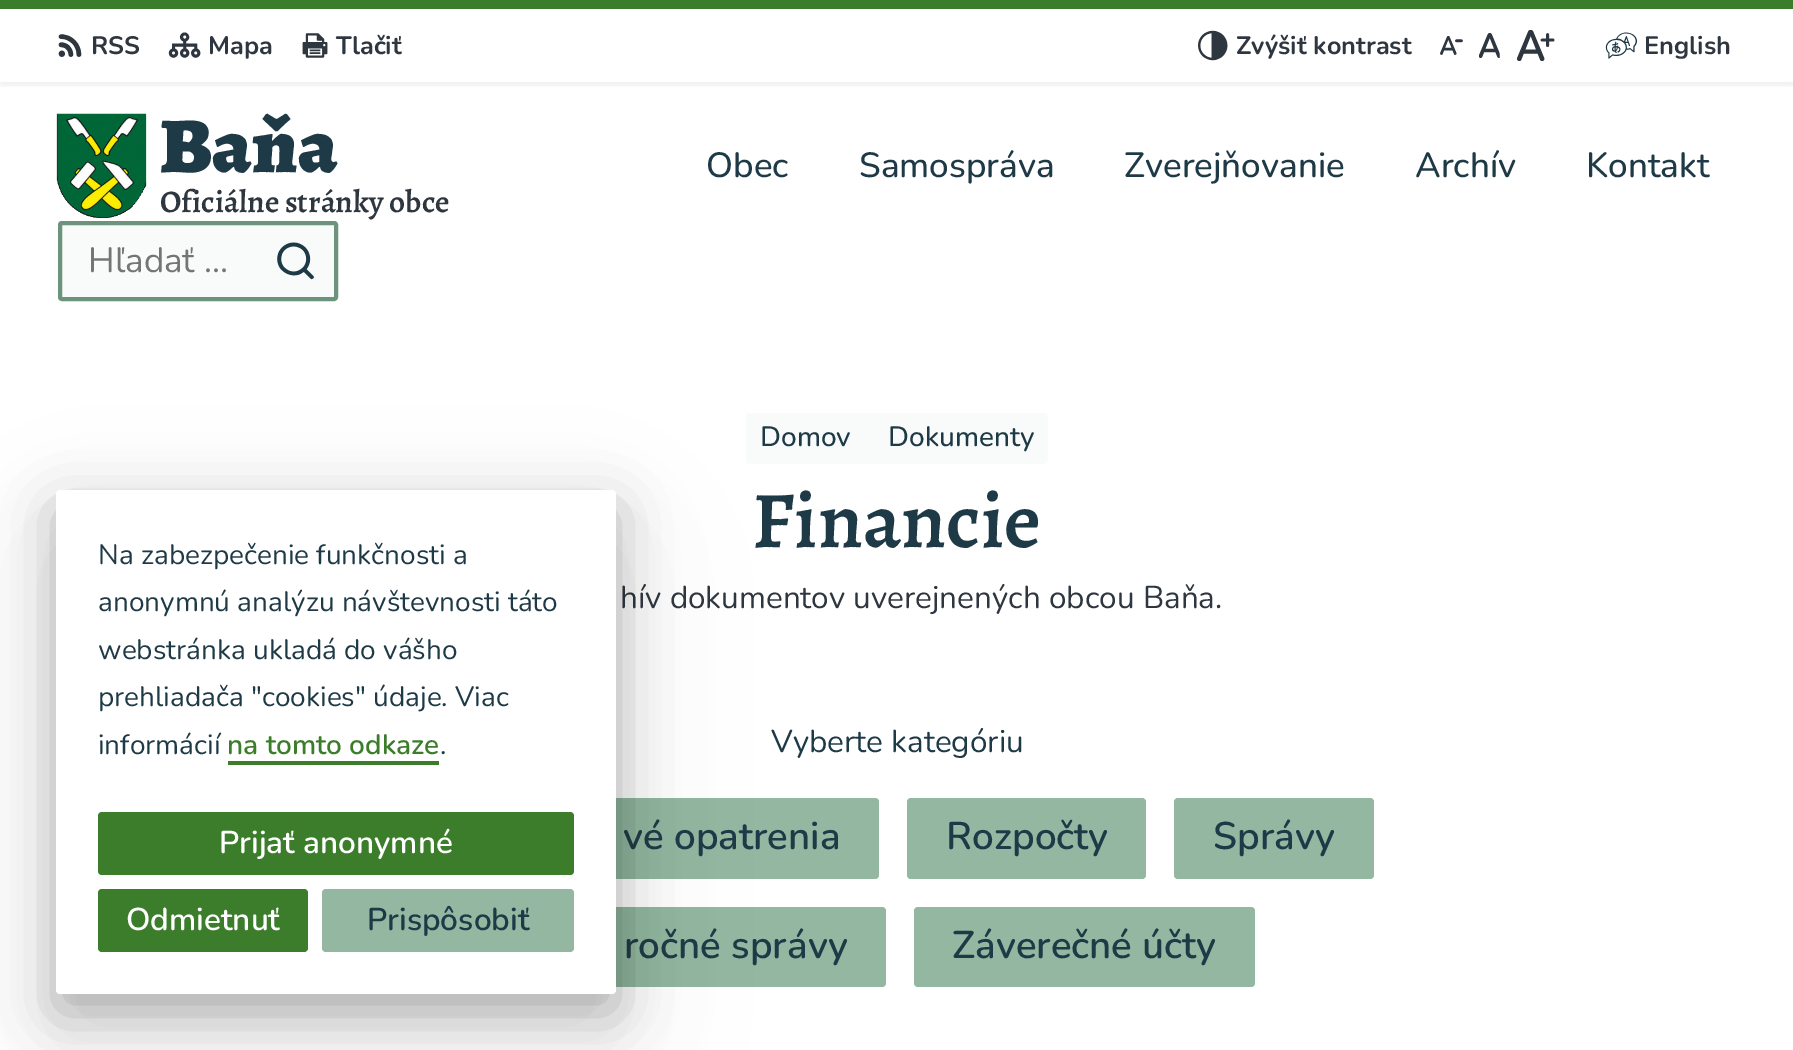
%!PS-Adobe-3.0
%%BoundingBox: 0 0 1793 1050
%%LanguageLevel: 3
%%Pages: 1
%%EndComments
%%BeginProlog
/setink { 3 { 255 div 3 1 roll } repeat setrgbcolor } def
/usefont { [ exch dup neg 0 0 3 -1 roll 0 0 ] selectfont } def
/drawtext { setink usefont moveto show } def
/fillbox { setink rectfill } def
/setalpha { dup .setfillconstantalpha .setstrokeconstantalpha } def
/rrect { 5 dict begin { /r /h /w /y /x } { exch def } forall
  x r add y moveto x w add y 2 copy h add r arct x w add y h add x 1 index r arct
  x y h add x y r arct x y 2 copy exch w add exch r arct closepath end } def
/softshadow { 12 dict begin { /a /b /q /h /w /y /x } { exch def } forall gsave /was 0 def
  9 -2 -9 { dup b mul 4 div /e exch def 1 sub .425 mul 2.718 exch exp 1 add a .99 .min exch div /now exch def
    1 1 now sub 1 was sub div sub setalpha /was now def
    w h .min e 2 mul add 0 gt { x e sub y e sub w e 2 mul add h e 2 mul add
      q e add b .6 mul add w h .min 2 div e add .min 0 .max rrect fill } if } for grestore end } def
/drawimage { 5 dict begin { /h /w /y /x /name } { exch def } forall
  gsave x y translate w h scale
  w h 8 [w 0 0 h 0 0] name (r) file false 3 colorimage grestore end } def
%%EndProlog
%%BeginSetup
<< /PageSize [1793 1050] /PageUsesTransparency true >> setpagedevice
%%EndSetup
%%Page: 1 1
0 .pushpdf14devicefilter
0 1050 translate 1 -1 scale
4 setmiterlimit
0 0 1793 1050 255 255 255 fillbox
0 0 1793 9 59 125 42 fillbox
gsave
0 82 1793 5 rectclip
0 0 0 setink
0 12 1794 74 0 2.5 0.05 softshadow
grestore
(assets/img1.rgb) 58 34 24 23 drawimage
(RSS) 91 54 /Nunito-Bold 25.25 46 54 63 drawtext
(assets/img2.rgb) 168 32 33 26 drawimage
(Mapa) 208 54 /Nunito-Bold 25.25 46 54 63 drawtext
(assets/img3.rgb) 302 33 26 25 drawimage
(Tlačiť) 336 54 /Nunito-Bold 25.25 46 54 63 drawtext
(assets/img4.rgb) 1198 30 30 31 drawimage
(Zvýšiť kontrast) 1236 54 /Nunito-Bold 25.25 46 54 63 drawtext
(assets/img5.rgb) 1440 36 23 19 drawimage
(assets/img6.rgb) 1479 33 21 25 drawimage
(assets/img7.rgb) 1516 30 39 31 drawimage
(assets/img8.rgb) 1605 32 33 27 drawimage
(English) 1644 54 /Nunito-Bold 25.25 46 54 63 drawtext
(assets/img9.rgb) 56 113 91 105 drawimage
(Baňa) 160 172 /Alegreya-Black 79 31 58 71 drawtext
(Oficiálne stránky obce) 160 212 /Alegreya-SemiBold 31.5 46 54 63 drawtext
(Obec) 706 177 /Nunito-Medium 35 31 58 71 drawtext
(Samospráva) 859 177 /Nunito-Medium 35 31 58 71 drawtext
(Zverejňovanie) 1124 177 /Nunito-Medium 35 31 58 71 drawtext
(Archív) 1415 177 /Nunito-Medium 35 31 58 71 drawtext
(Kontakt) 1586 177 /Nunito-Medium 35 31 58 71 drawtext
249 251 250 setink
60 223 276 76 2 rrect gsave fill grestore
108 147 123 setink
4 setlinewidth
stroke
(Hľadať …) 88 272 /Nunito-Regular 35 117 117 117 drawtext
(assets/img10.rgb) 277 242 37 38 drawimage
249 251 250 setink
746 413 302 51 4 rrect fill
(Domov) 760 446 /Nunito-Medium 28 31 58 71 drawtext
(Dokumenty) 888 446 /Nunito-Medium 28 31 58 71 drawtext
(Financie) 752 547 /Alegreya-SemiBold 80.5 31 58 71 drawtext
(hív dokumentov uverejnených obcou Baňa.) 620 608 /Nunito-Regular 31.5 46 54 63 drawtext
(Vyberte kategóriu) 771 752 /Nunito-Regular 31.5 31 58 71 drawtext
147 183 160 setink
420 798 459 81 4 rrect fill
(vé opatrenia) 623 849 /Nunito-SemiBold 38.5 31 58 71 drawtext
147 183 160 setink
907 798 239 81 4 rrect fill
(Rozpočty) 946 849 /Nunito-SemiBold 38.5 31 58 71 drawtext
147 183 160 setink
1174 798 200 81 4 rrect fill
(Správy) 1213 849 /Nunito-SemiBold 38.5 31 58 71 drawtext
147 183 160 setink
539 907 347 80 4 rrect fill
(ročné správy) 624 958 /Nunito-SemiBold 38.5 31 58 71 drawtext
147 183 160 setink
914 907 341 80 4 rrect fill
(Záverečné účty) 952 958 /Nunito-SemiBold 38.5 31 58 71 drawtext
0 0 0 setink
56 543 560 504 4 79 0.05 softshadow
56 525 560 504 4 52.5 0.05 softshadow
56 508 560 504 4 26 0.25 softshadow
255 255 255 setink
56 490 560 504 4 rrect fill
(Na zabezpečenie funkčnosti a) 98 564 /Nunito-Regular 28 31 58 71 drawtext
(anonymnú analýzu návštevnosti táto) 98 611 /Nunito-Regular 28 31 58 71 drawtext
(webstránka ukladá do vášho) 98 659 /Nunito-Regular 28 31 58 71 drawtext
(prehliadača "cookies" údaje. Viac) 98 706 /Nunito-Regular 28 31 58 71 drawtext
(informácií) 98 754 /Nunito-Regular 28 31 58 71 drawtext
(na tomto odkaze) 227 754 /Nunito-SemiBold 28 59 125 42 drawtext
228 761 211 4 59 125 42 fillbox
(.) 440 754 /Nunito-Regular 28 31 58 71 drawtext
59 125 42 setink
98 812 476 63 4 rrect fill
(Prijať anonymné) 219 853 /Nunito-SemiBold 31.5 255 255 255 drawtext
59 125 42 setink
98 889 210 63 4 rrect fill
(Odmietnuť) 126 930 /Nunito-SemiBold 31.5 255 255 255 drawtext
147 183 160 setink
322 889 252 63 4 rrect fill
(Prispôsobiť) 367 930 /Nunito-SemiBold 31.5 31 58 71 drawtext
.poppdf14devicefilter showpage
%%EOF
